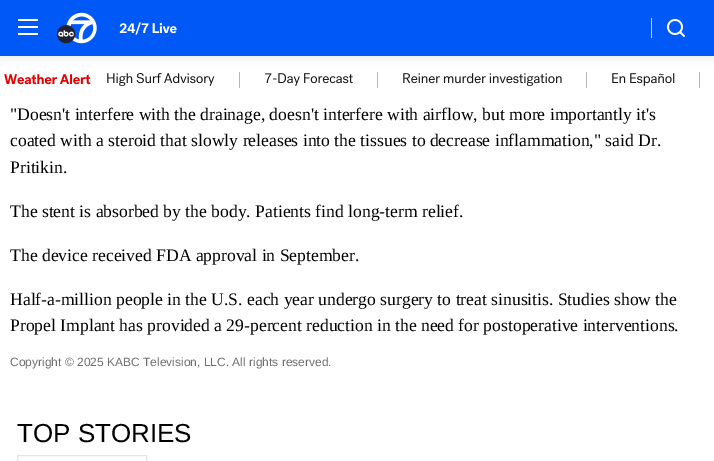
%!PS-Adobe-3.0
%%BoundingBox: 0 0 714 461
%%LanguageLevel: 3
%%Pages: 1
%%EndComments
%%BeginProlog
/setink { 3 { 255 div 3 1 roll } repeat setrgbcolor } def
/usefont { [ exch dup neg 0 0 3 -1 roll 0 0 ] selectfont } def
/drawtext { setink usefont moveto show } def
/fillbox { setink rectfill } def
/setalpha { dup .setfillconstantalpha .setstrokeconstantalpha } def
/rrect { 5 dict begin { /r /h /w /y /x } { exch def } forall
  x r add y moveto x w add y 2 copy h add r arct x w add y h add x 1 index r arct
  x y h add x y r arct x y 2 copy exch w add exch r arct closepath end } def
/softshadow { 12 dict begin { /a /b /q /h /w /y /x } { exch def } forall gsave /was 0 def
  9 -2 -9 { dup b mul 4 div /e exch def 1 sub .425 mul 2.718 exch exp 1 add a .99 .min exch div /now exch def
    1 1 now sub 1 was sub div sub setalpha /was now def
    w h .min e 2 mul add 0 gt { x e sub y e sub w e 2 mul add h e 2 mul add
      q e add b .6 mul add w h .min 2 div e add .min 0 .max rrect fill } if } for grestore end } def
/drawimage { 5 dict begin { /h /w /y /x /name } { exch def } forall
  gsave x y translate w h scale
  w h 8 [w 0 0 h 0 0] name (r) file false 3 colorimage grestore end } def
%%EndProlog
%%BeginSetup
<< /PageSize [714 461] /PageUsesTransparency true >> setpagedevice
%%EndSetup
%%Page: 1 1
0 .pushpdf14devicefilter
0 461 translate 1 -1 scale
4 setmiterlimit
0 0 714 461 255 255 255 fillbox
(assets/img5.rgb) 107 73 108 13 drawimage
239 72 1 16 176 181 190 fillbox
(assets/img6.rgb) 265 73 88 13 drawimage
377 72 1 16 176 181 190 fillbox
(assets/img7.rgb) 403 73 159 13 drawimage
586 72 1 16 176 181 190 fillbox
(assets/img8.rgb) 612 73 63 13 drawimage
699 72 1 16 176 181 190 fillbox
0 0 0 setink
0 2 714 56 0 5 0.08 softshadow
0 0 714 56 0 88 246 fillbox
255 255 255 setink
18 26 20 2 1 rrect fill
18 19 20 2 1 rrect fill
18 33 20 2 1 rrect fill
(assets/img1.rgb) 57 12 40 32 drawimage
(assets/img2.rgb) 119 22 58 13 drawimage
651 18 1 20 206 207 207 fillbox
(assets/img3.rgb) 667 19 18 18 drawimage
(assets/img4.rgb) 4 74 87 11 drawimage
("Doesn't interfere with the drainage, doesn't interfere with airflow, but more importantly it's) 10 120 /LiberationSerif-Regular 17.6 0 0 0 drawtext
(coated with a steroid that slowly releases into the tissues to decrease inflammation," said Dr.) 10 146 /LiberationSerif-Regular 17.6 0 0 0 drawtext
(Pritikin.) 10 173 /LiberationSerif-Regular 17.6 0 0 0 drawtext
(The stent is absorbed by the body. Patients find long-term relief.) 10 217 /LiberationSerif-Regular 17.6 0 0 0 drawtext
(The device received FDA approval in September.) 10 261 /LiberationSerif-Regular 17.6 0 0 0 drawtext
(Half-a-million people in the U.S. each year undergo surgery to treat sinusitis. Studies show the) 10 305 /LiberationSerif-Regular 17.6 0 0 0 drawtext
(Propel Implant has provided a 29-percent reduction in the need for postoperative interventions.) 10 331 /LiberationSerif-Regular 17.6 0 0 0 drawtext
(Copyright © 2025 KABC Television, LLC. All rights reserved.) 10 366 /LiberationSans-Regular 12 110 110 110 drawtext
(TOP STORIES) 17 442 /LiberationSans-Regular 26 0 0 0 drawtext
228 228 228 setink
17.5 455.5 129 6 rectstroke
.poppdf14devicefilter showpage
%%EOF
